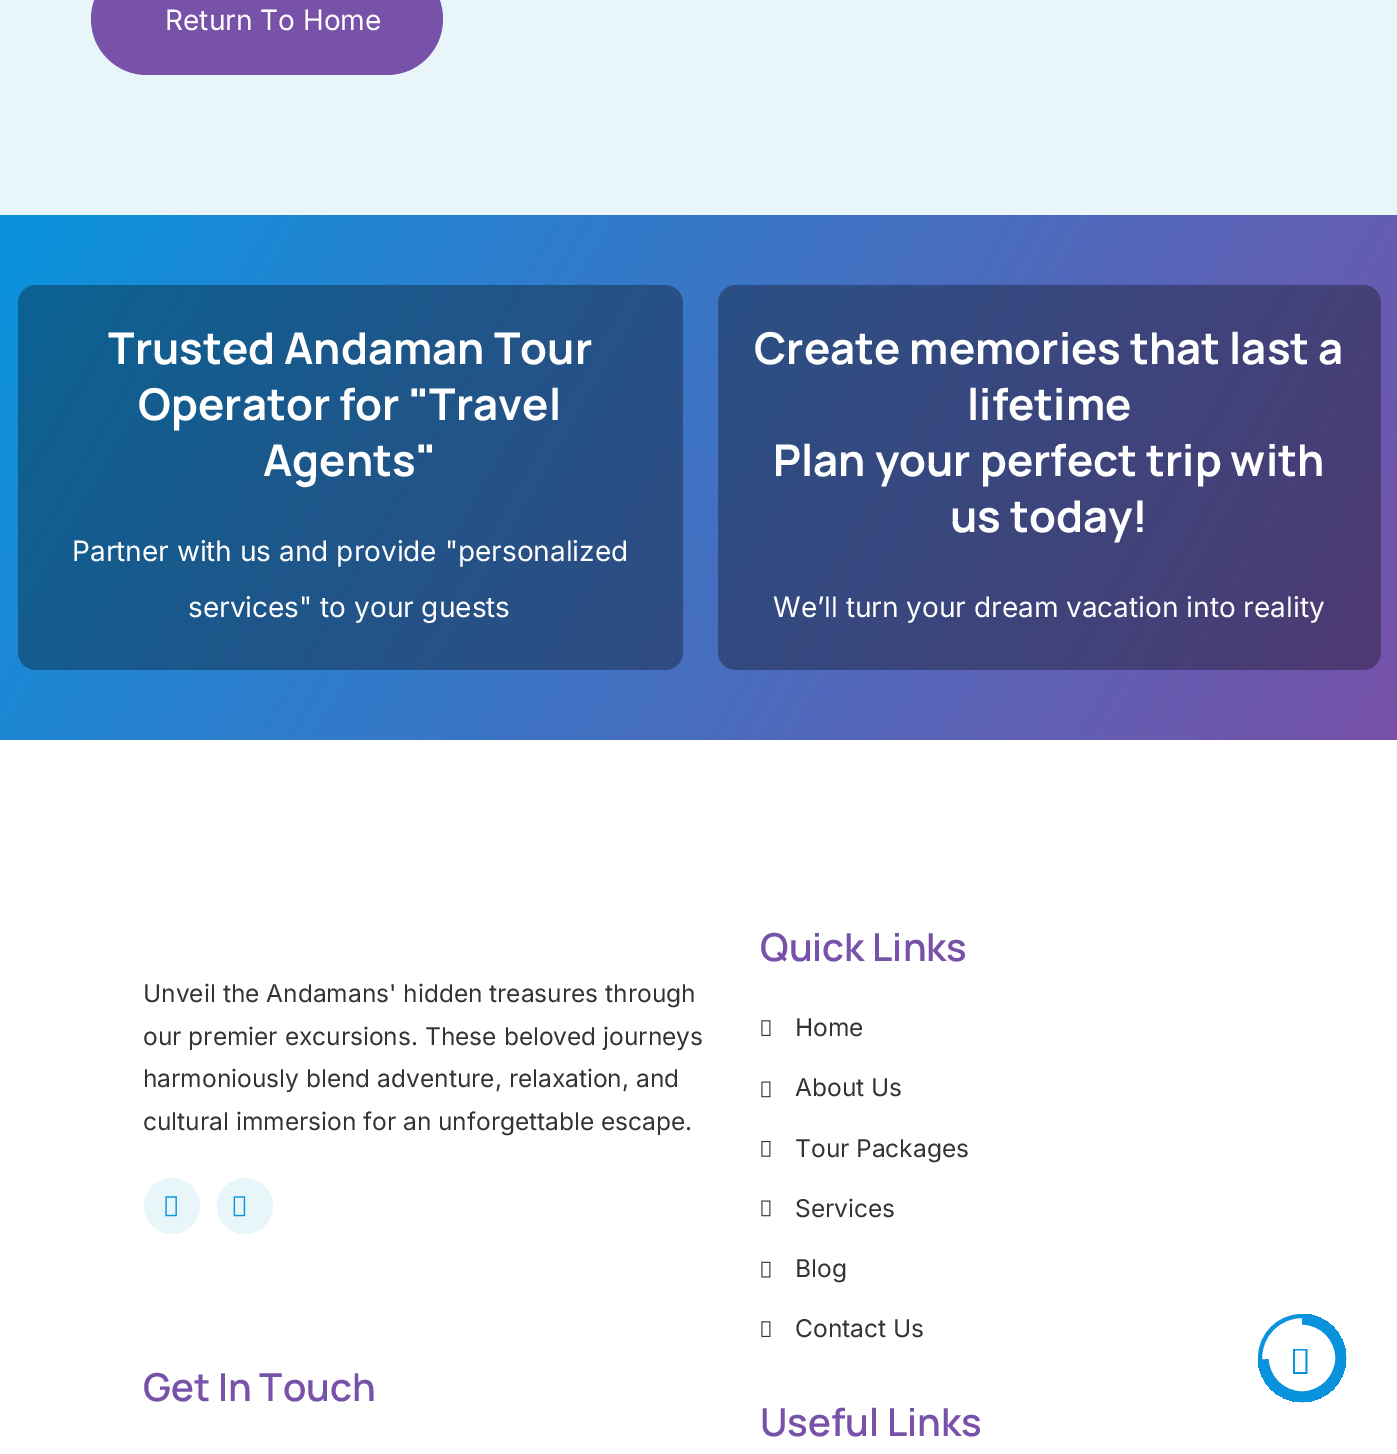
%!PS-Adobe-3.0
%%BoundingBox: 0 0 1397 1454
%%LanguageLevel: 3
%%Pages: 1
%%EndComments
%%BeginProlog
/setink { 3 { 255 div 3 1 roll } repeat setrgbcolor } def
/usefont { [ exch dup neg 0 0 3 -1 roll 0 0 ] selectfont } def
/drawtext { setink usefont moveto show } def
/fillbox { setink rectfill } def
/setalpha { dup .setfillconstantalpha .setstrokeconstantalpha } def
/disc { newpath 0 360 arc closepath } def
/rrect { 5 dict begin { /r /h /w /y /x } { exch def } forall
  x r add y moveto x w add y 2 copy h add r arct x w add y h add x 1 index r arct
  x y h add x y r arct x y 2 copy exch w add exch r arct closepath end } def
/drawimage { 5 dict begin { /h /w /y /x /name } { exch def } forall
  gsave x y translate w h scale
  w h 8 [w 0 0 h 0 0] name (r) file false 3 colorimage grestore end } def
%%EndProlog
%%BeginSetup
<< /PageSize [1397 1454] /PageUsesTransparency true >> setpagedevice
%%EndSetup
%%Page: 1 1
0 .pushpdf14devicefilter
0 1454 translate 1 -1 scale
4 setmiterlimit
0 0 1397 1454 255 255 255 fillbox
0 0 1397 215 233 246 249 fillbox
120 81 169 setink
91 -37 352 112 56 rrect fill
(Return To Home) 165 30 /Inter-Regular 28 255 255 255 drawtext
gsave 0 215 moveto 1397 215 lineto 1397 740 lineto 0 740 lineto closepath clip newpath
<< /ShadingType 2 /ColorSpace /DeviceRGB /Coords [61 109 1337 846] /Extend [true true] /Function << /FunctionType 2 /Domain [0 1] /C0 [0.035 0.576 0.867] /C1 [0.471 0.318 0.663] /N 1 >> >> shfill grestore
0.34 setalpha
8 8 8 setink
18 285 665 385 18 rrect fill
1 setalpha
(Trusted Andaman Tour) 108 364 /Manrope-Bold 43.75 255 255 255 drawtext
(Operator for "Travel) 138 420 /Manrope-Bold 43.75 255 255 255 drawtext
(Agents") 263 476 /Manrope-Bold 43.75 255 255 255 drawtext
(Partner with us and provide "personalized) 72 561 /Inter-Regular 28 255 255 255 drawtext
(services" to your guests) 188 617 /Inter-Regular 28 255 255 255 drawtext
0.34 setalpha
8 8 8 setink
718 285 663 385 18 rrect fill
1 setalpha
(Create memories that last a) 754 364 /Manrope-Bold 43.75 255 255 255 drawtext
(lifetime) 967 420 /Manrope-Bold 43.75 255 255 255 drawtext
(Plan your perfect trip with) 773 476 /Manrope-Bold 43.75 255 255 255 drawtext
(us today!) 950 532 /Manrope-Bold 43.75 255 255 255 drawtext
(We’ll turn your dream vacation into reality) 773 617 /Inter-Regular 28 255 255 255 drawtext
(Unveil the Andamans' hidden treasures through) 143 1002 /Inter-Regular 24.5 51 51 51 drawtext
(our premier excursions. These beloved journeys) 143 1045 /Inter-Regular 24.5 51 51 51 drawtext
(harmoniously blend adventure, relaxation, and) 143 1087 /Inter-Regular 24.5 51 51 51 drawtext
(cultural immersion for an unforgettable escape.) 143 1130 /Inter-Regular 24.5 51 51 51 drawtext
233 246 249 setink
172 1206 28 disc fill
(assets/img1.rgb) 165 1196 12 21 drawimage
245 1206 28 disc fill
(assets/img2.rgb) 233 1196 13 21 drawimage
(Quick Links) 760 961 /Manrope-SemiBold 38.5 120 81 169 drawtext
(assets/img3.rgb) 761 1020 10 16 drawimage
(Home) 795 1036 /Inter-Regular 24.5 51 51 51 drawtext
(assets/img4.rgb) 761 1081 10 17 drawimage
(About Us) 795 1096 /Inter-Regular 24.5 51 51 51 drawtext
(assets/img5.rgb) 761 1141 10 16 drawimage
(Tour Packages) 795 1157 /Inter-Regular 24.5 51 51 51 drawtext
(assets/img4.rgb) 761 1200 10 17 drawimage
(Services) 795 1217 /Inter-Regular 24.5 51 51 51 drawtext
(assets/img6.rgb) 761 1261 10 17 drawimage
(Blog) 795 1277 /Inter-Regular 24.5 51 51 51 drawtext
(assets/img3.rgb) 761 1321 10 16 drawimage
(Contact Us) 795 1337 /Inter-Regular 24.5 51 51 51 drawtext
(Get In Touch) 143 1401 /Manrope-SemiBold 38.5 120 81 169 drawtext
(Useful Links) 760 1436 /Manrope-SemiBold 38.5 120 81 169 drawtext
gsave
1258 1314 88 88 44 rrect clip newpath
9 147 221 setink
17.2 setlinewidth
1302 1316 moveto 1325 1316 1344 1335 1344 1358 curveto 1344 1381 1325 1400 1302 1400 curveto 1279.5 1400 1261 1382 1260 1359.5 curveto stroke
grestore
9 147 221 setink
4 setlinewidth
1302 1358 42 disc stroke
1293 1374 moveto 1293 1349 lineto 1307.5 1349 lineto 1307.5 1374 lineto closepath 1295 1372 moveto 1305.5 1372 lineto 1305.5 1350.5 lineto 1295 1350.5 lineto closepath fill
.poppdf14devicefilter showpage
%%EOF
